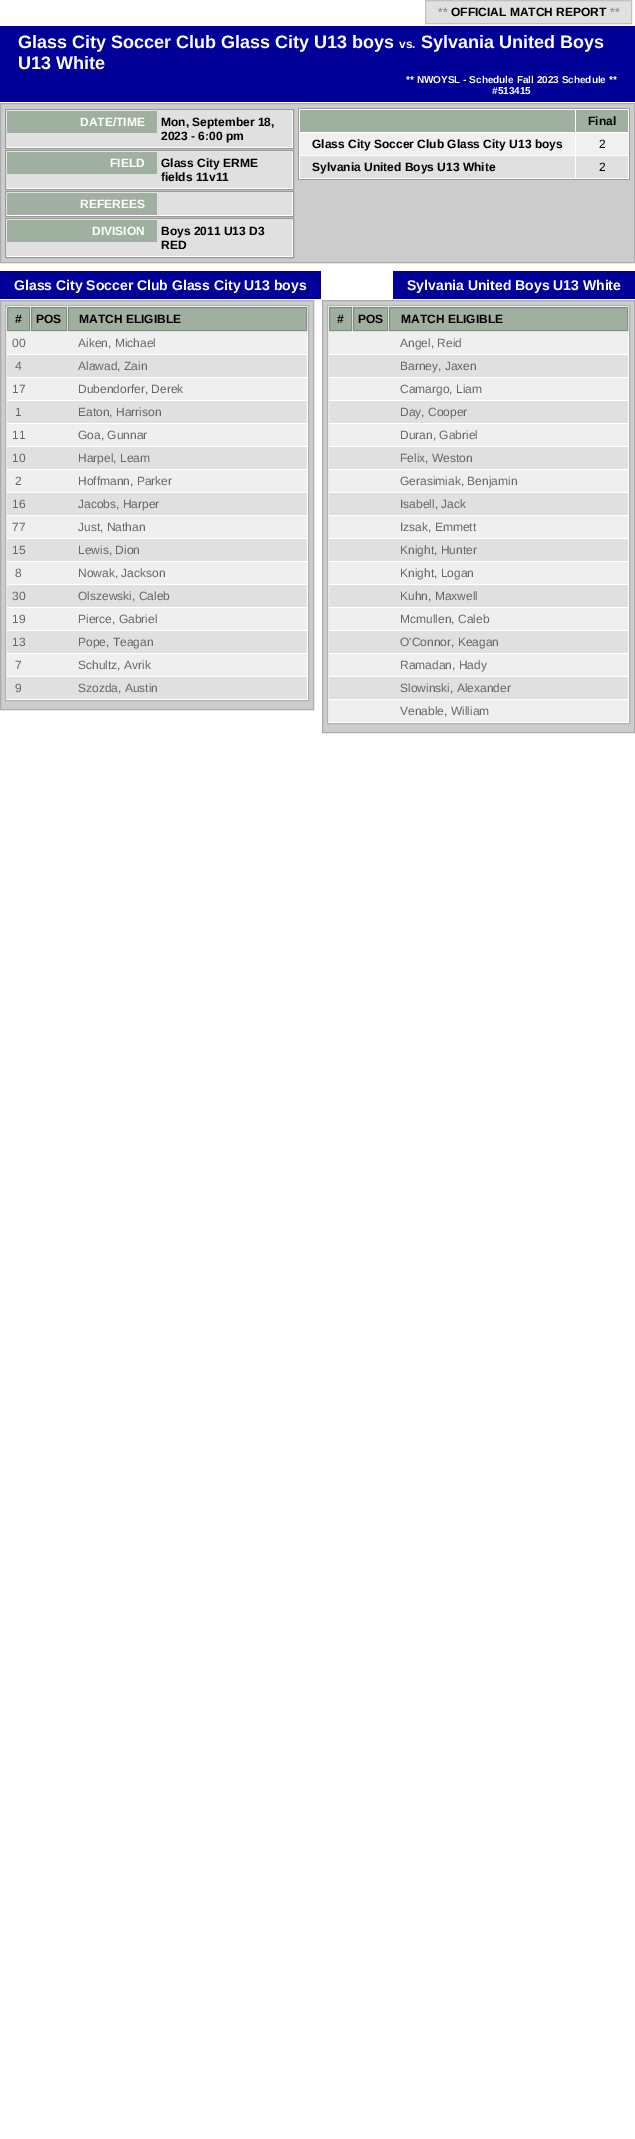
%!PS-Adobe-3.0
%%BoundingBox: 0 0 635 2139
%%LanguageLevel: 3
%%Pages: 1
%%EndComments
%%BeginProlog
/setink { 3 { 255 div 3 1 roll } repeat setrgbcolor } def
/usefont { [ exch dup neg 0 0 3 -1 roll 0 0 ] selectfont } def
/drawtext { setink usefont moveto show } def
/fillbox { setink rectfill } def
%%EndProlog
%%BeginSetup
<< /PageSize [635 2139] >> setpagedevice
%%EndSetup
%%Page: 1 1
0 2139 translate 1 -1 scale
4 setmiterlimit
0 0 635 2139 255 255 255 fillbox
224 224 224 setink
425.5 0.5 moveto 631.5 0.5 lineto 631.5 23.5 lineto 425.5 23.5 lineto closepath gsave fill grestore
192 192 192 setink
stroke
(**) 438 16 /LiberationSans-Bold 12 153 153 153 drawtext
(OFFICIAL MATCH REPORT) 451 16 /LiberationSans-Bold 12 0 0 0 drawtext
(**) 610 16 /LiberationSans-Bold 12 153 153 153 drawtext
0 26 635 76 0 0 153 fillbox
(Glass City Soccer Club Glass City U13 boys) 18 48 /LiberationSans-Bold 18 255 255 255 drawtext
(vs.) 399 48 /LiberationSans-Bold 12 255 255 255 drawtext
(Sylvania United Boys) 421 48 /LiberationSans-Bold 18 255 255 255 drawtext
(U13 White) 18 69 /LiberationSans-Bold 18 255 255 255 drawtext
(** NWOYSL - Schedule Fall 2023 Schedule **) 406 83 /LiberationSans-Bold 10 255 255 255 drawtext
(#513415) 492 94 /LiberationSans-Bold 10 255 255 255 drawtext
204 204 204 setink
0.5 103.5 moveto 634.5 103.5 lineto 634.5 262.5 lineto 0.5 262.5 lineto closepath gsave fill grestore
172 172 172 setink
stroke
255 255 255 setink
5.5 109.5 moveto 293.5 109.5 lineto 293.5 148.5 lineto 5.5 148.5 lineto closepath gsave fill grestore
153 153 153 setink
stroke
7 111 285 36 224 224 224 fillbox
7 111 150 22 160 176 160 fillbox
(DATE/TIME) 80 126 /LiberationSans-Bold 12 255 255 255 drawtext
(Mon, September 18,) 161 126 /LiberationSans-Bold 12 0 0 0 drawtext
(2023 - 6:00 pm) 161 140 /LiberationSans-Bold 12 0 0 0 drawtext
255 255 255 setink
5.5 150.5 moveto 293.5 150.5 lineto 293.5 189.5 lineto 5.5 189.5 lineto closepath gsave fill grestore
153 153 153 setink
stroke
7 152 285 36 224 224 224 fillbox
7 152 150 22 160 176 160 fillbox
(FIELD) 110 167 /LiberationSans-Bold 12 255 255 255 drawtext
(Glass City ERME) 161 167 /LiberationSans-Bold 12 0 0 0 drawtext
(fields 11v11) 161 181 /LiberationSans-Bold 12 0 0 0 drawtext
255 255 255 setink
5.5 191.5 moveto 293.5 191.5 lineto 293.5 216.5 lineto 5.5 216.5 lineto closepath gsave fill grestore
153 153 153 setink
stroke
7 193 150 22 160 176 160 fillbox
(REFEREES) 80 208 /LiberationSans-Bold 12 255 255 255 drawtext
157 193 135 22 224 224 224 fillbox
255 255 255 setink
5.5 218.5 moveto 293.5 218.5 lineto 293.5 257.5 lineto 5.5 257.5 lineto closepath gsave fill grestore
153 153 153 setink
stroke
7 220 285 36 224 224 224 fillbox
7 220 150 22 160 176 160 fillbox
(DIVISION) 92 235 /LiberationSans-Bold 12 255 255 255 drawtext
(Boys 2011 U13 D3) 161 235 /LiberationSans-Bold 12 0 0 0 drawtext
(RED) 161 249 /LiberationSans-Bold 12 0 0 0 drawtext
298 108 332 72 153 153 153 fillbox
299 109 330 70 255 255 255 fillbox
300 110 275 22 160 176 160 fillbox
576 110 52 22 160 176 160 fillbox
(Final) 588 125 /LiberationSans-Bold 12 0 0 0 drawtext
300 133 275 22 240 240 240 fillbox
(Glass City Soccer Club Glass City U13 boys) 312 148 /LiberationSans-Bold 12 0 0 0 drawtext
576 133 52 22 240 240 240 fillbox
(2) 599 148 /LiberationSans-Regular 12 0 0 0 drawtext
300 156 275 22 224 224 224 fillbox
(Sylvania United Boys U13 White) 312 171 /LiberationSans-Bold 12 0 0 0 drawtext
576 156 52 22 224 224 224 fillbox
(2) 599 171 /LiberationSans-Regular 12 0 0 0 drawtext
0 271 321 28 0 0 153 fillbox
(Glass City Soccer Club Glass City U13 boys) 14 290 /LiberationSans-Bold 14 255 255 255 drawtext
393 271 242 28 0 0 153 fillbox
(Sylvania United Boys U13 White) 407 290 /LiberationSans-Bold 14 255 255 255 drawtext
204 204 204 setink
0.5 300.5 moveto 313.5 300.5 lineto 313.5 709.5 lineto 0.5 709.5 lineto closepath gsave fill grestore
172 172 172 setink
stroke
255 255 255 setink
5.5 305.5 moveto 308.5 305.5 lineto 308.5 700.5 lineto 5.5 700.5 lineto closepath gsave fill grestore
176 176 176 setink
stroke
160 176 160 setink
7.5 307.5 moveto 29.5 307.5 lineto 29.5 330.5 lineto 7.5 330.5 lineto closepath gsave fill grestore
128 144 128 setink
stroke
(#) 15 323 /LiberationSans-Bold 12 0 0 0 drawtext
160 176 160 setink
31.5 307.5 moveto 66.5 307.5 lineto 66.5 330.5 lineto 31.5 330.5 lineto closepath gsave fill grestore
128 144 128 setink
stroke
(POS) 36 323 /LiberationSans-Bold 12 0 0 0 drawtext
160 176 160 setink
68.5 307.5 moveto 306.5 307.5 lineto 306.5 330.5 lineto 68.5 330.5 lineto closepath gsave fill grestore
128 144 128 setink
stroke
(MATCH ELIGIBLE) 79 323 /LiberationSans-Bold 12 0 0 0 drawtext
7 332 300 22 239 239 239 fillbox
(00) 12 347 /LiberationSans-Regular 12 102 102 102 drawtext
(Aiken, Michael) 78 347 /LiberationSans-Regular 12 102 102 102 drawtext
7 355 300 22 224 224 224 fillbox
(4) 15 370 /LiberationSans-Regular 12 102 102 102 drawtext
(Alawad, Zain) 78 370 /LiberationSans-Regular 12 102 102 102 drawtext
7 378 300 22 239 239 239 fillbox
(17) 12 393 /LiberationSans-Regular 12 102 102 102 drawtext
(Dubendorfer, Derek) 78 393 /LiberationSans-Regular 12 102 102 102 drawtext
7 401 300 22 224 224 224 fillbox
(1) 15 416 /LiberationSans-Regular 12 102 102 102 drawtext
(Eaton, Harrison) 78 416 /LiberationSans-Regular 12 102 102 102 drawtext
7 424 300 22 239 239 239 fillbox
(11) 12 439 /LiberationSans-Regular 12 102 102 102 drawtext
(Goa, Gunnar) 78 439 /LiberationSans-Regular 12 102 102 102 drawtext
7 447 300 22 224 224 224 fillbox
(10) 12 462 /LiberationSans-Regular 12 102 102 102 drawtext
(Harpel, Leam) 78 462 /LiberationSans-Regular 12 102 102 102 drawtext
7 470 300 22 239 239 239 fillbox
(2) 15 485 /LiberationSans-Regular 12 102 102 102 drawtext
(Hoffmann, Parker) 78 485 /LiberationSans-Regular 12 102 102 102 drawtext
7 493 300 22 224 224 224 fillbox
(16) 12 508 /LiberationSans-Regular 12 102 102 102 drawtext
(Jacobs, Harper) 78 508 /LiberationSans-Regular 12 102 102 102 drawtext
7 516 300 22 239 239 239 fillbox
(77) 12 531 /LiberationSans-Regular 12 102 102 102 drawtext
(Just, Nathan) 78 531 /LiberationSans-Regular 12 102 102 102 drawtext
7 539 300 22 224 224 224 fillbox
(15) 12 554 /LiberationSans-Regular 12 102 102 102 drawtext
(Lewis, Dion) 78 554 /LiberationSans-Regular 12 102 102 102 drawtext
7 562 300 22 239 239 239 fillbox
(8) 15 577 /LiberationSans-Regular 12 102 102 102 drawtext
(Nowak, Jackson) 78 577 /LiberationSans-Regular 12 102 102 102 drawtext
7 585 300 22 224 224 224 fillbox
(30) 12 600 /LiberationSans-Regular 12 102 102 102 drawtext
(Olszewski, Caleb) 78 600 /LiberationSans-Regular 12 102 102 102 drawtext
7 608 300 22 239 239 239 fillbox
(19) 12 623 /LiberationSans-Regular 12 102 102 102 drawtext
(Pierce, Gabriel) 78 623 /LiberationSans-Regular 12 102 102 102 drawtext
7 631 300 22 224 224 224 fillbox
(13) 12 646 /LiberationSans-Regular 12 102 102 102 drawtext
(Pope, Teagan) 78 646 /LiberationSans-Regular 12 102 102 102 drawtext
7 654 300 22 239 239 239 fillbox
(7) 15 669 /LiberationSans-Regular 12 102 102 102 drawtext
(Schultz, Avrik) 78 669 /LiberationSans-Regular 12 102 102 102 drawtext
7 677 300 22 224 224 224 fillbox
(9) 15 692 /LiberationSans-Regular 12 102 102 102 drawtext
(Szozda, Austin) 78 692 /LiberationSans-Regular 12 102 102 102 drawtext
204 204 204 setink
322.5 300.5 moveto 634.5 300.5 lineto 634.5 732.5 lineto 322.5 732.5 lineto closepath gsave fill grestore
172 172 172 setink
stroke
255 255 255 setink
327.5 305.5 moveto 629.5 305.5 lineto 629.5 723.5 lineto 327.5 723.5 lineto closepath gsave fill grestore
176 176 176 setink
stroke
160 176 160 setink
329.5 307.5 moveto 351.5 307.5 lineto 351.5 330.5 lineto 329.5 330.5 lineto closepath gsave fill grestore
128 144 128 setink
stroke
(#) 337 323 /LiberationSans-Bold 12 0 0 0 drawtext
160 176 160 setink
353.5 307.5 moveto 387.5 307.5 lineto 387.5 330.5 lineto 353.5 330.5 lineto closepath gsave fill grestore
128 144 128 setink
stroke
(POS) 358 323 /LiberationSans-Bold 12 0 0 0 drawtext
160 176 160 setink
389.5 307.5 moveto 627.5 307.5 lineto 627.5 330.5 lineto 389.5 330.5 lineto closepath gsave fill grestore
128 144 128 setink
stroke
(MATCH ELIGIBLE) 401 323 /LiberationSans-Bold 12 0 0 0 drawtext
329 332 299 22 239 239 239 fillbox
(Angel, Reid) 400 347 /LiberationSans-Regular 12 102 102 102 drawtext
329 355 299 22 224 224 224 fillbox
(Barney, Jaxen) 400 370 /LiberationSans-Regular 12 102 102 102 drawtext
329 378 299 22 239 239 239 fillbox
(Camargo, Liam) 400 393 /LiberationSans-Regular 12 102 102 102 drawtext
329 401 299 22 224 224 224 fillbox
(Day, Cooper) 400 416 /LiberationSans-Regular 12 102 102 102 drawtext
329 424 299 22 239 239 239 fillbox
(Duran, Gabriel) 400 439 /LiberationSans-Regular 12 102 102 102 drawtext
329 447 299 22 224 224 224 fillbox
(Felix, Weston) 400 462 /LiberationSans-Regular 12 102 102 102 drawtext
329 470 299 22 239 239 239 fillbox
(Gerasimiak, Benjamin) 400 485 /LiberationSans-Regular 12 102 102 102 drawtext
329 493 299 22 224 224 224 fillbox
(Isabell, Jack) 400 508 /LiberationSans-Regular 12 102 102 102 drawtext
329 516 299 22 239 239 239 fillbox
(Izsak, Emmett) 400 531 /LiberationSans-Regular 12 102 102 102 drawtext
329 539 299 22 224 224 224 fillbox
(Knight, Hunter) 400 554 /LiberationSans-Regular 12 102 102 102 drawtext
329 562 299 22 239 239 239 fillbox
(Knight, Logan) 400 577 /LiberationSans-Regular 12 102 102 102 drawtext
329 585 299 22 224 224 224 fillbox
(Kuhn, Maxwell) 400 600 /LiberationSans-Regular 12 102 102 102 drawtext
329 608 299 22 239 239 239 fillbox
(Mcmullen, Caleb) 400 623 /LiberationSans-Regular 12 102 102 102 drawtext
329 631 299 22 224 224 224 fillbox
(O'Connor, Keagan) 400 646 /LiberationSans-Regular 12 102 102 102 drawtext
329 654 299 22 239 239 239 fillbox
(Ramadan, Hady) 400 669 /LiberationSans-Regular 12 102 102 102 drawtext
329 677 299 22 224 224 224 fillbox
(Slowinski, Alexander) 400 692 /LiberationSans-Regular 12 102 102 102 drawtext
329 700 299 22 239 239 239 fillbox
(Venable, William) 400 715 /LiberationSans-Regular 12 102 102 102 drawtext
showpage
%%EOF
